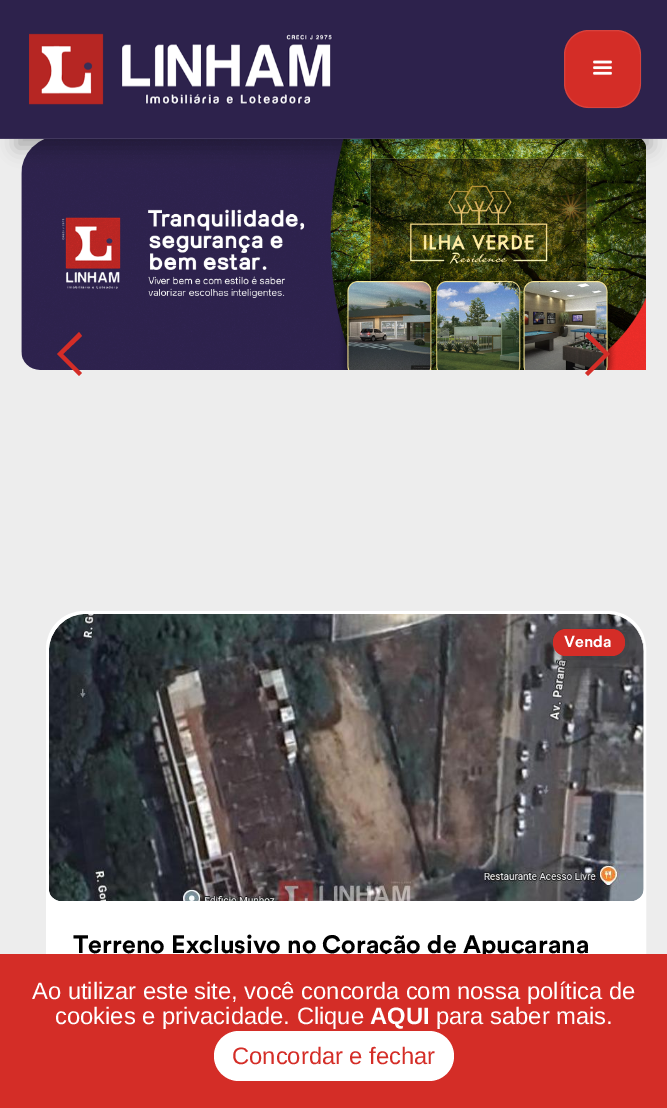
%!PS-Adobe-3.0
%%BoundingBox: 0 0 667 1108
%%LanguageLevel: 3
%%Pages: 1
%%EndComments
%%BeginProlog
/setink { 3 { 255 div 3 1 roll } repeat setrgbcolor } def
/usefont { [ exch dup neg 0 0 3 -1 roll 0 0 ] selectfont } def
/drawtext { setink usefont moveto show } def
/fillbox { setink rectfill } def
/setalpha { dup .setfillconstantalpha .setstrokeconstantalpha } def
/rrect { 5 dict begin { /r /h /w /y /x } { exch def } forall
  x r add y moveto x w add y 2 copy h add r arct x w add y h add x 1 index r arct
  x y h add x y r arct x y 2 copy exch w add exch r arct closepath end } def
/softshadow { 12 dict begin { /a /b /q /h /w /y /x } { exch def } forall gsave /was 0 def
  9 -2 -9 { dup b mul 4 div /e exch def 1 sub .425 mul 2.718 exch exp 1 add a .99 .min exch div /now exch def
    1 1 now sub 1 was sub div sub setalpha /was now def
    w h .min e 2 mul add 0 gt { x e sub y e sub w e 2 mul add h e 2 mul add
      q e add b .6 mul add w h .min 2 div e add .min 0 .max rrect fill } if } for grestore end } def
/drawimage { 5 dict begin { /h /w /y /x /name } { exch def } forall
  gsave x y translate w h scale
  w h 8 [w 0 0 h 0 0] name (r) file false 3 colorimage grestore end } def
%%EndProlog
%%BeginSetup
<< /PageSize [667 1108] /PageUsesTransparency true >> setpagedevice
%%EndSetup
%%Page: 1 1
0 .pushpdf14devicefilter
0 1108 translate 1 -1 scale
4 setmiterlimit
0 0 667 1108 237 237 237 fillbox
(assets/img3.rgb) 21 139 625 231 drawimage
0 0 0 setink
16 41 635 107 0 9 0.27 softshadow
0 0 667 138 45 34 76 fillbox
0 138 667 1 66 56 94 fillbox
(assets/img1.rgb) 29 33 304 72 drawimage
212 45 39 setink
564 30 77 78 25 rrect fill
0.1 setalpha
255 255 255 setink
564.5 30.5 76 77 24.5 rrect stroke
1 setalpha
(assets/img2.rgb) 593 60 19 15 drawimage
212 45 39 setink
57 354 moveto 79 332 lineto 82 336 lineto 63 354 lineto 82 373 lineto 79 376 lineto closepath fill
610 354 moveto 588 332 lineto 585 336 lineto 604 354 lineto 585 373 lineto 588 376 lineto closepath fill
255 255 255 setink
84 612.5 moveto 608 612.5 lineto 628 612.5 644.5 629 644.5 649 curveto 644.5 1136 lineto 644.5 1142.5 639.5 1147.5 633 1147.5 curveto 59 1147.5 lineto 52.5 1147.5 47.5 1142.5 47.5 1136 curveto 47.5 649 lineto 47.5 629 64 612.5 84 612.5 curveto closepath gsave fill grestore
3 setlinewidth
stroke
(assets/img4.rgb) 49 614 595 287 drawimage
gsave
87 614 moveto 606 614 lineto 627 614 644 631 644 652 curveto 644 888 lineto 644 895 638 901 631 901 curveto 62 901 lineto 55 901 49 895 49 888 curveto 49 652 lineto 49 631 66 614 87 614 curveto closepath clip newpath
0 0 0 setink
548 624 85 40 19 15.5 0.3 softshadow
grestore
212 45 39 setink
553 629 72 27 13 rrect fill
(Venda) 564 647 /Circular-Bold 16 255 255 255 drawtext
(Terreno Exclusivo no Coração de Apucarana) 73 953 /Circular-Bold 25 0 0 0 drawtext
0 954 667 154 212 45 39 fillbox
(Ao utilizar este site, você concorda com nossa política de) 32 999 /LiberationSans-Regular 23.75 255 255 255 drawtext
(cookies e privacidade. Clique) 55 1024 /LiberationSans-Regular 23.75 255 255 255 drawtext
(AQUI) 370 1024 /LiberationSans-Bold 23.75 255 255 255 drawtext
(para saber mais.) 436 1024 /LiberationSans-Regular 23.75 255 255 255 drawtext
214 1031 240 50 25 rrect fill
(Concordar e fechar) 232 1064 /LiberationSans-Regular 23.75 212 45 39 drawtext
.poppdf14devicefilter showpage
%%EOF
